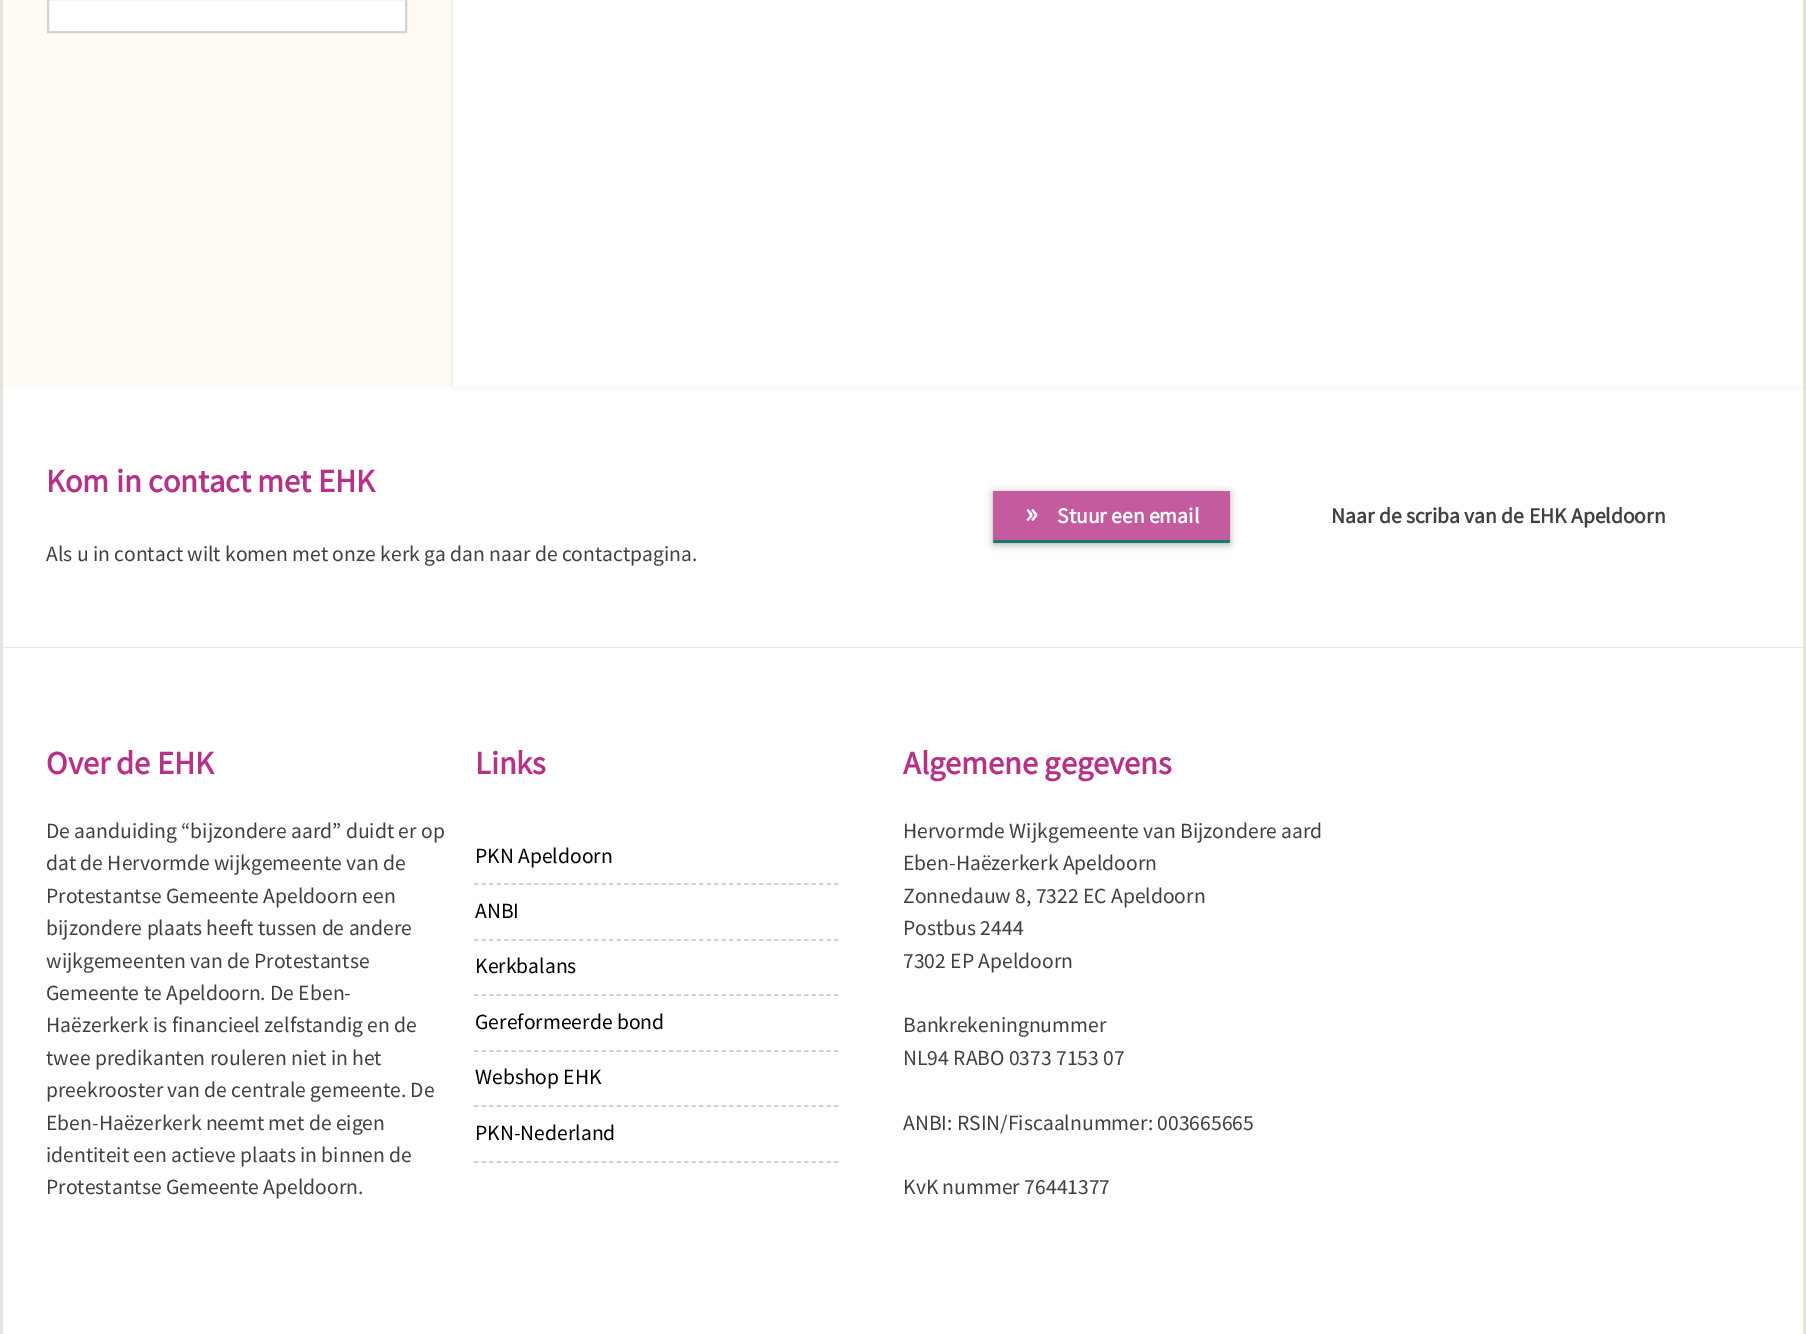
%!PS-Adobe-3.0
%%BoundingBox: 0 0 1806 1334
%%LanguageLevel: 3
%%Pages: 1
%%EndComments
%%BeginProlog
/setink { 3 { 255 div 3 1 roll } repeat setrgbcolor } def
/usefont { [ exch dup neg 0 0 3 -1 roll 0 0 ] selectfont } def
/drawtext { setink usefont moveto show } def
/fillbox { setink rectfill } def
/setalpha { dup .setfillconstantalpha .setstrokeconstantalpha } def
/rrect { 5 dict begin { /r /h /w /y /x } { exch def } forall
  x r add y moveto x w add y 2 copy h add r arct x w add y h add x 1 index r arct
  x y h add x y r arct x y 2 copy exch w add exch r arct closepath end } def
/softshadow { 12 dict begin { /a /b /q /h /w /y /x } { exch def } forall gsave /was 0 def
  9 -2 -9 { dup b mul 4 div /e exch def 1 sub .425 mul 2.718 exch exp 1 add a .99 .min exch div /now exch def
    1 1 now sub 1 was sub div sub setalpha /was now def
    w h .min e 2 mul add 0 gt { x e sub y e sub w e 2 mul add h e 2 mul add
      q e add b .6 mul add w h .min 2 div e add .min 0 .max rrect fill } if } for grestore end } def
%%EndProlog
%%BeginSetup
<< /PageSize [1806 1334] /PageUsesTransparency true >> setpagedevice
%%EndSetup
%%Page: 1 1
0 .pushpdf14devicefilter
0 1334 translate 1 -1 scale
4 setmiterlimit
0 0 1806 1334 253 247 239 fillbox
0 0 0 setink
3 -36 1800 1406 0 12 0.16 softshadow
3 0 450 387 255 250 243 fillbox
255 255 255 setink
48 -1 moveto 406 -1 lineto 406 32 lineto 48 32 lineto closepath gsave fill grestore
211 211 211 setink
2 setlinewidth
stroke
3 387 1800 260 255 255 255 fillbox
50 50 50 setink
453 -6 1350 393 0 2 0.1 softshadow
453 0 1350 387 255 255 255 fillbox
3 647 1800 1 232 232 232 fillbox
(Kom in contact met EHK) 46 492 /SourceSansPro-Bold 32.4 183 50 135 drawtext
(Als u in contact wilt komen met onze kerk ga dan naar de contactpagina.) 46 561 /SourceSansPro-Regular 21.6 64 64 64 drawtext
0 0 0 setink
993 492 237 53 1.5 4 0.3 softshadow
197 91 159 setink
993 491 237 52 1.5 rrect fill
20 124 104 setink
994 543 moveto 1229 543 lineto 1230 542 lineto 1228 539 lineto 1228 540 lineto 994 540 lineto 993 543 lineto closepath fill
(») 1025 523 /SourceSansPro-Bold 30 255 255 255 drawtext
(Stuur een email) 1057 523 /SourceSansPro-Bold 21.6 255 255 255 drawtext
(Naar de scriba van de EHK Apeldoorn) 1331 523 /SourceSansPro-Bold 21.6 64 64 64 drawtext
3 648 1800 686 255 255 255 fillbox
(Over de EHK) 46 774 /SourceSansPro-Bold 32.4 183 50 135 drawtext
(De aanduiding “bijzondere aard” duidt er op) 46 838 /SourceSansPro-Regular 21.6 64 64 64 drawtext
(dat de Hervormde wijkgemeente van de) 46 870 /SourceSansPro-Regular 21.6 64 64 64 drawtext
(Protestantse Gemeente Apeldoorn een) 46 903 /SourceSansPro-Regular 21.6 64 64 64 drawtext
(bijzondere plaats heeft tussen de andere) 46 935 /SourceSansPro-Regular 21.6 64 64 64 drawtext
(wijkgemeenten van de Protestantse) 46 968 /SourceSansPro-Regular 21.6 64 64 64 drawtext
(Gemeente te Apeldoorn. De Eben-) 46 1000 /SourceSansPro-Regular 21.6 64 64 64 drawtext
(Haëzerkerk is financieel zelfstandig en de) 46 1032 /SourceSansPro-Regular 21.6 64 64 64 drawtext
(twee predikanten rouleren niet in het) 46 1065 /SourceSansPro-Regular 21.6 64 64 64 drawtext
(preekrooster van de centrale gemeente. De) 46 1097 /SourceSansPro-Regular 21.6 64 64 64 drawtext
(Eben-Haëzerkerk neemt met de eigen) 46 1130 /SourceSansPro-Regular 21.6 64 64 64 drawtext
(identiteit een actieve plaats in binnen de) 46 1162 /SourceSansPro-Regular 21.6 64 64 64 drawtext
(Protestantse Gemeente Apeldoorn.) 46 1194 /SourceSansPro-Regular 21.6 64 64 64 drawtext
(Links) 475 774 /SourceSansPro-Bold 32.4 183 50 135 drawtext
204 204 204 setink
1.5 setlinewidth
[4.5 3] 0 setdash
474 884 moveto 838.5 884 lineto stroke
(PKN Apeldoorn) 475 863 /SourceSansPro-Regular 21.6 0 0 0 drawtext
204 204 204 setink
474 940 moveto 838.5 940 lineto stroke
(ANBI) 475 918 /SourceSansPro-Regular 21.6 0 0 0 drawtext
204 204 204 setink
474 995 moveto 838.5 995 lineto stroke
(Kerkbalans) 475 973 /SourceSansPro-Regular 21.6 0 0 0 drawtext
204 204 204 setink
474 1051 moveto 838.5 1051 lineto stroke
(Gereformeerde bond) 475 1029 /SourceSansPro-Regular 21.6 0 0 0 drawtext
204 204 204 setink
474 1106 moveto 838.5 1106 lineto stroke
(Webshop EHK) 475 1084 /SourceSansPro-Regular 21.6 0 0 0 drawtext
204 204 204 setink
474 1162 moveto 838.5 1162 lineto stroke
(PKN-Nederland) 475 1140 /SourceSansPro-Regular 21.6 0 0 0 drawtext
(Algemene gegevens) 903 774 /SourceSansPro-Bold 32.4 183 50 135 drawtext
(Hervormde Wijkgemeente van Bijzondere aard) 903 838 /SourceSansPro-Regular 21.6 64 64 64 drawtext
(Eben-Haëzerkerk Apeldoorn) 903 870 /SourceSansPro-Regular 21.6 64 64 64 drawtext
(Zonnedauw 8, 7322 EC Apeldoorn) 903 903 /SourceSansPro-Regular 21.6 64 64 64 drawtext
(Postbus 2444) 903 935 /SourceSansPro-Regular 21.6 64 64 64 drawtext
(7302 EP Apeldoorn) 903 968 /SourceSansPro-Regular 21.6 64 64 64 drawtext
(Bankrekeningnummer) 903 1032 /SourceSansPro-Regular 21.6 64 64 64 drawtext
(NL94 RABO 0373 7153 07) 903 1065 /SourceSansPro-Regular 21.6 64 64 64 drawtext
(ANBI: RSIN/Fiscaalnummer: 003665665) 903 1130 /SourceSansPro-Regular 21.6 64 64 64 drawtext
(KvK nummer 76441377) 903 1194 /SourceSansPro-Regular 21.6 64 64 64 drawtext
.poppdf14devicefilter showpage
%%EOF
